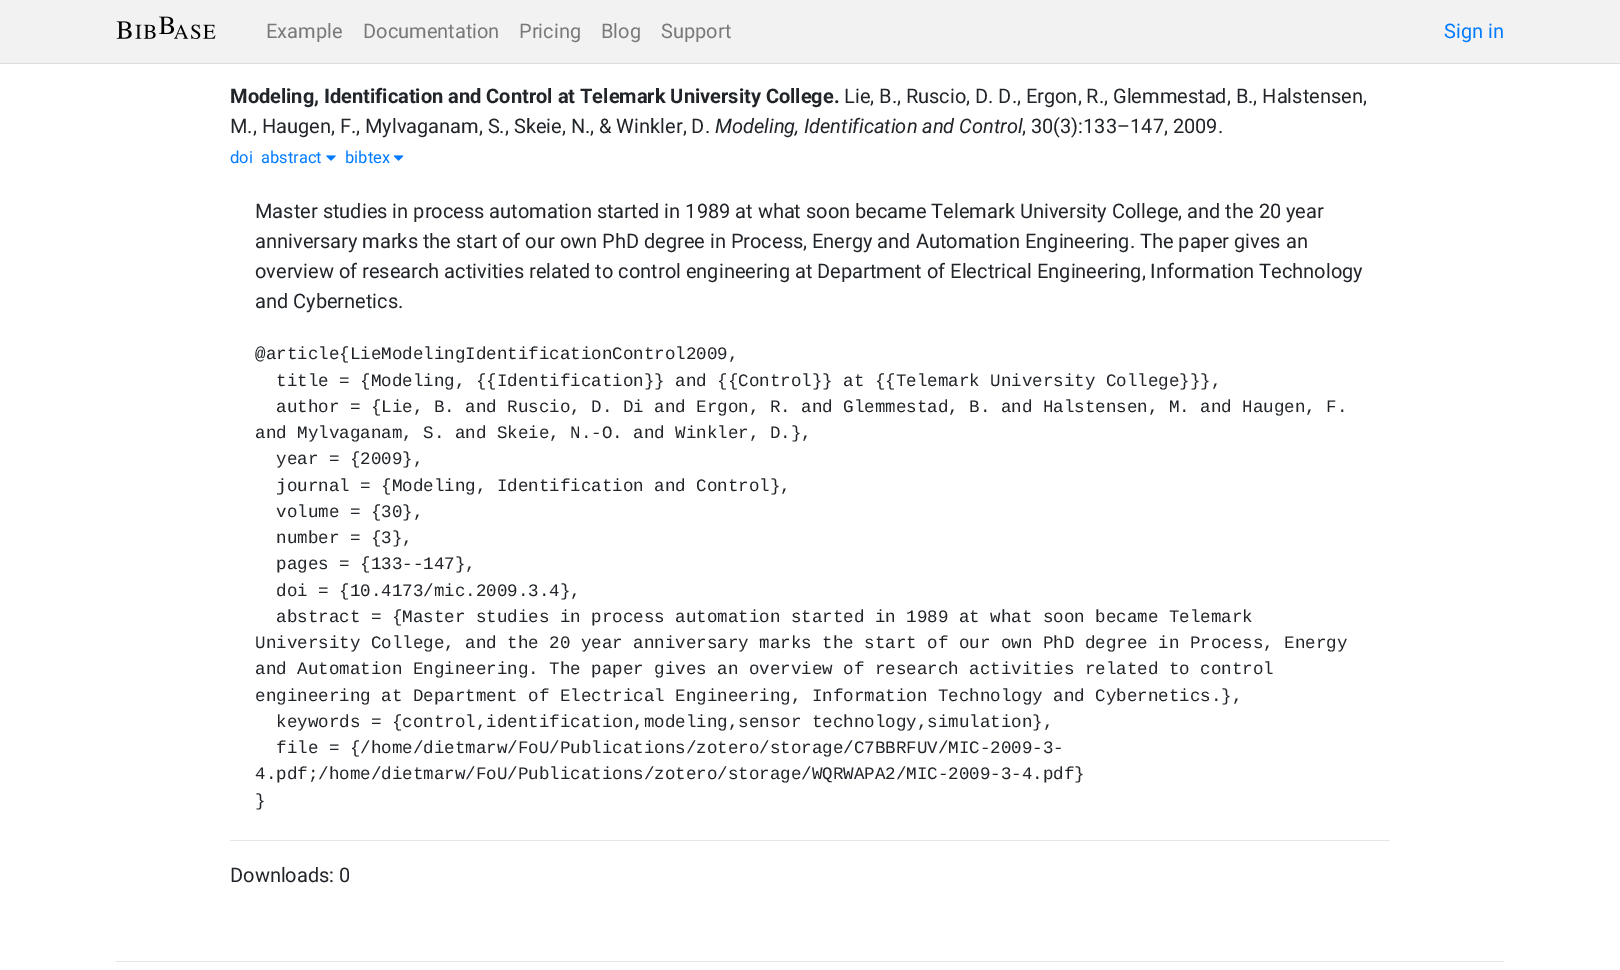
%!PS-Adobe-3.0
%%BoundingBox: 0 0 1620 970
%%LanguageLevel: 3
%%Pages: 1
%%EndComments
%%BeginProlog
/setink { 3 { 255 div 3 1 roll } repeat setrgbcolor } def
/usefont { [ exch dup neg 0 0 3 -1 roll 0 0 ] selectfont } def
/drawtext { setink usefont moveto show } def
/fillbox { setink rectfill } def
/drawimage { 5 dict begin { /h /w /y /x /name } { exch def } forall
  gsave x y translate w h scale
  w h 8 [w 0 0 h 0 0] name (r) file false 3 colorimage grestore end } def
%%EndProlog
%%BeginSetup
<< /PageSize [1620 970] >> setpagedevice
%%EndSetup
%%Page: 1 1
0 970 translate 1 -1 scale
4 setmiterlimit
0 0 1620 970 255 255 255 fillbox
0 0 1620 63 242 242 242 fillbox
0 63 1620 1 221 221 221 fillbox
(assets/img1.rgb) 116 16 100 23 drawimage
(Example) 266 38 /Roboto-Regular 20 121 121 121 drawtext
(Documentation) 363 38 /Roboto-Regular 20 121 121 121 drawtext
(Pricing) 519 38 /Roboto-Regular 20 121 121 121 drawtext
(Blog) 601 38 /Roboto-Regular 20 121 121 121 drawtext
(Support) 661 38 /Roboto-Regular 20 121 121 121 drawtext
(Sign in) 1444 38 /Roboto-Regular 20 0 123 255 drawtext
(Modeling, Identification and Control at Telemark University College.) 230 103 /Roboto-Bold 20 33 37 41 drawtext
(Lie, B., Ruscio, D. D., Ergon, R., Glemmestad, B., Halstensen,) 844 103 /Roboto-Regular 20 33 37 41 drawtext
(M., Haugen, F., Mylvaganam, S., Skeie, N., & Winkler, D.) 230 133 /Roboto-Regular 20 33 37 41 drawtext
(Modeling, Identification and Control) 715 133 /Roboto-Italic 20 33 37 41 drawtext
(, 30\(3\):133–147, 2009.) 1022 133 /Roboto-Regular 20 33 37 41 drawtext
(doi) 230 163 /Roboto-Regular 16.5 0 123 255 drawtext
(abstract) 261 163 /Roboto-Regular 16.5 0 123 255 drawtext
(assets/img2.rgb) 326 155 10 6 drawimage
(bibtex) 345 163 /Roboto-Regular 16.5 0 123 255 drawtext
(assets/img3.rgb) 393 155 11 6 drawimage
(Master studies in process automation started in 1989 at what soon became Telemark University College, and the 20 year) 255 218 /Roboto-Regular 20 33 37 41 drawtext
(anniversary marks the start of our own PhD degree in Process, Energy and Automation Engineering. The paper gives an) 255 248 /Roboto-Regular 20 33 37 41 drawtext
(overview of research activities related to control engineering at Department of Electrical Engineering, Information Technology) 255 278 /Roboto-Regular 20 33 37 41 drawtext
(and Cybernetics.) 255 308 /Roboto-Regular 20 33 37 41 drawtext
(@article{LieModelingIdentificationControl2009,) 255 359 /LiberationMono-Regular 17.5 33 37 41 drawtext
(title = {Modeling, {{Identification}} and {{Control}} at {{Telemark University College}}},) 276 386 /LiberationMono-Regular 17.5 33 37 41 drawtext
(author = {Lie, B. and Ruscio, D. Di and Ergon, R. and Glemmestad, B. and Halstensen, M. and Haugen, F.) 276 412 /LiberationMono-Regular 17.5 33 37 41 drawtext
(and Mylvaganam, S. and Skeie, N.-O. and Winkler, D.},) 255 438 /LiberationMono-Regular 17.5 33 37 41 drawtext
(year = {2009},) 276 464 /LiberationMono-Regular 17.5 33 37 41 drawtext
(journal = {Modeling, Identification and Control},) 276 491 /LiberationMono-Regular 17.5 33 37 41 drawtext
(volume = {30},) 276 517 /LiberationMono-Regular 17.5 33 37 41 drawtext
(number = {3},) 276 543 /LiberationMono-Regular 17.5 33 37 41 drawtext
(pages = {133--147},) 276 569 /LiberationMono-Regular 17.5 33 37 41 drawtext
(doi = {10.4173/mic.2009.3.4},) 276 596 /LiberationMono-Regular 17.5 33 37 41 drawtext
(abstract = {Master studies in process automation started in 1989 at what soon became Telemark) 276 622 /LiberationMono-Regular 17.5 33 37 41 drawtext
(University College, and the 20 year anniversary marks the start of our own PhD degree in Process, Energy) 255 648 /LiberationMono-Regular 17.5 33 37 41 drawtext
(and Automation Engineering. The paper gives an overview of research activities related to control) 255 674 /LiberationMono-Regular 17.5 33 37 41 drawtext
(engineering at Department of Electrical Engineering, Information Technology and Cybernetics.},) 255 701 /LiberationMono-Regular 17.5 33 37 41 drawtext
(keywords = {control,identification,modeling,sensor technology,simulation},) 276 727 /LiberationMono-Regular 17.5 33 37 41 drawtext
(file = {/home/dietmarw/FoU/Publications/zotero/storage/C7BBRFUV/MIC-2009-3-) 276 753 /LiberationMono-Regular 17.5 33 37 41 drawtext
(4.pdf;/home/dietmarw/FoU/Publications/zotero/storage/WQRWAPA2/MIC-2009-3-4.pdf}) 255 779 /LiberationMono-Regular 17.5 33 37 41 drawtext
(}) 255 806 /LiberationMono-Regular 17.5 33 37 41 drawtext
230 840 1160 1 230 230 230 fillbox
(Downloads: 0) 230 882 /Roboto-Regular 20 33 37 41 drawtext
116 961 1388 1 229 229 229 fillbox
showpage
%%EOF
